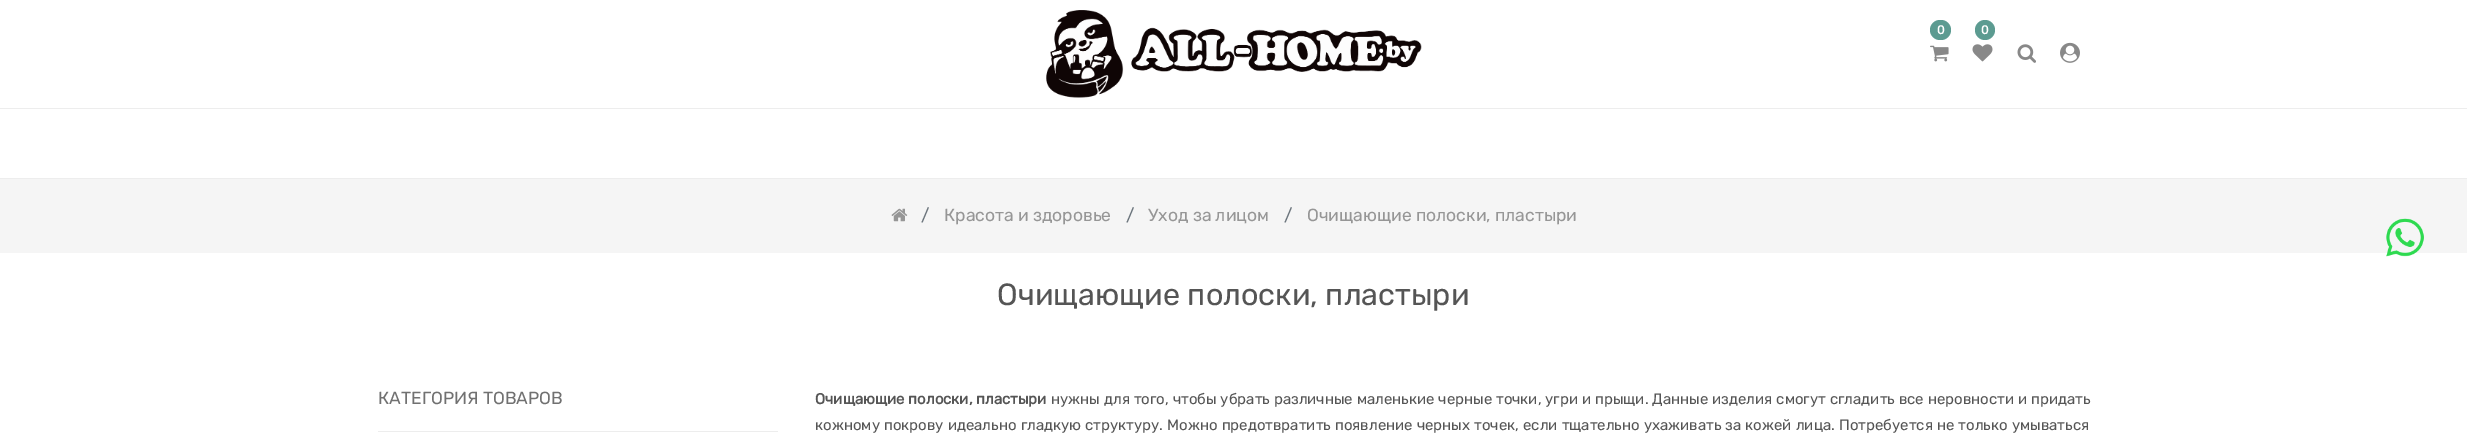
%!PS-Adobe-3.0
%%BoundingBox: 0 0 2467 434
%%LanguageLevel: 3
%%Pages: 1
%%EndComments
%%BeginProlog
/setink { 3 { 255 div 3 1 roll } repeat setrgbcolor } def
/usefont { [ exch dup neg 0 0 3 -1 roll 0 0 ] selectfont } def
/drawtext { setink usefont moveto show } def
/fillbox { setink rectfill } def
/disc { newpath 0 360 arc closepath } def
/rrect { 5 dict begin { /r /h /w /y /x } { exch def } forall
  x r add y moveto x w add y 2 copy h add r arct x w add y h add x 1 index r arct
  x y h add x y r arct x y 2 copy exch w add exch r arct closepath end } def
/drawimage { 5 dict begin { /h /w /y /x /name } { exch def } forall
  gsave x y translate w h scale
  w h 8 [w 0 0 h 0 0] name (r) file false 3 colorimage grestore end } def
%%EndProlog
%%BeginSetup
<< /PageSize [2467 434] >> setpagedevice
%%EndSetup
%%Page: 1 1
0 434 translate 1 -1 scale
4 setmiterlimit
0 0 2467 434 255 255 255 fillbox
(assets/img1.rgb) 1046 10 376 88 drawimage
92 155 145 setink
1930 20 21 20 10 rrect fill
(0) 1937 34 /Rubik-Bold 12 255 255 255 drawtext
(assets/img2.rgb) 1930 45 19 17 drawimage
92 155 145 setink
1985 30 10 disc fill
(0) 1981 34 /Rubik-Bold 12 255 255 255 drawtext
(assets/img3.rgb) 1972 44 21 18 drawimage
(assets/img4.rgb) 2017 44 19 19 drawimage
(assets/img5.rgb) 2060 42 20 21 drawimage
0 108 2467 1 237 237 237 fillbox
0 178 2467 1 237 237 237 fillbox
0 179 2467 74 245 245 245 fillbox
(assets/img6.rgb) 891 208 17 14 drawimage
(/) 921 221 /Rubik-Light 17.5 108 117 125 drawtext
(Красота и здоровье) 944 221 /Rubik-Light 17.5 150 150 150 drawtext
(/) 1126 221 /Rubik-Light 17.5 108 117 125 drawtext
(Уход за лицом) 1148 221 /Rubik-Light 17.5 150 150 150 drawtext
(/) 1284 221 /Rubik-Light 17.5 108 117 125 drawtext
(Очищающие полоски, пластыри) 1307 221 /Rubik-Light 17.5 150 150 150 drawtext
(Очищающие полоски, пластыри) 997 305 /Rubik-Light 30.6 85 85 85 drawtext
378 431 400 1 237 237 237 fillbox
(КАТЕГОРИЯ ТОВАРОВ) 378 404 /Rubik-Light 17.5 113 113 113 drawtext
(Очищающие полоски, пластыри) 815 404 /Rubik-Bold 15 85 85 85 drawtext
/Rubik-Light 15 usefont
1051 404 moveto 0.2 0 32 (нужны для того, чтобы убрать различные маленькие черные точки, угри и прыщи. Данные изделия смогут сгладить все неровности и придать) widthshow
815 430 moveto 0.4 0 32 (кожному покрову идеально гладкую структуру. Можно предотвратить появление черных точек, если тщательно ухаживать за кожей лица. Потребуется не только умываться) widthshow
(assets/img7.rgb) 2386 218 38 39 drawimage
showpage
%%EOF
